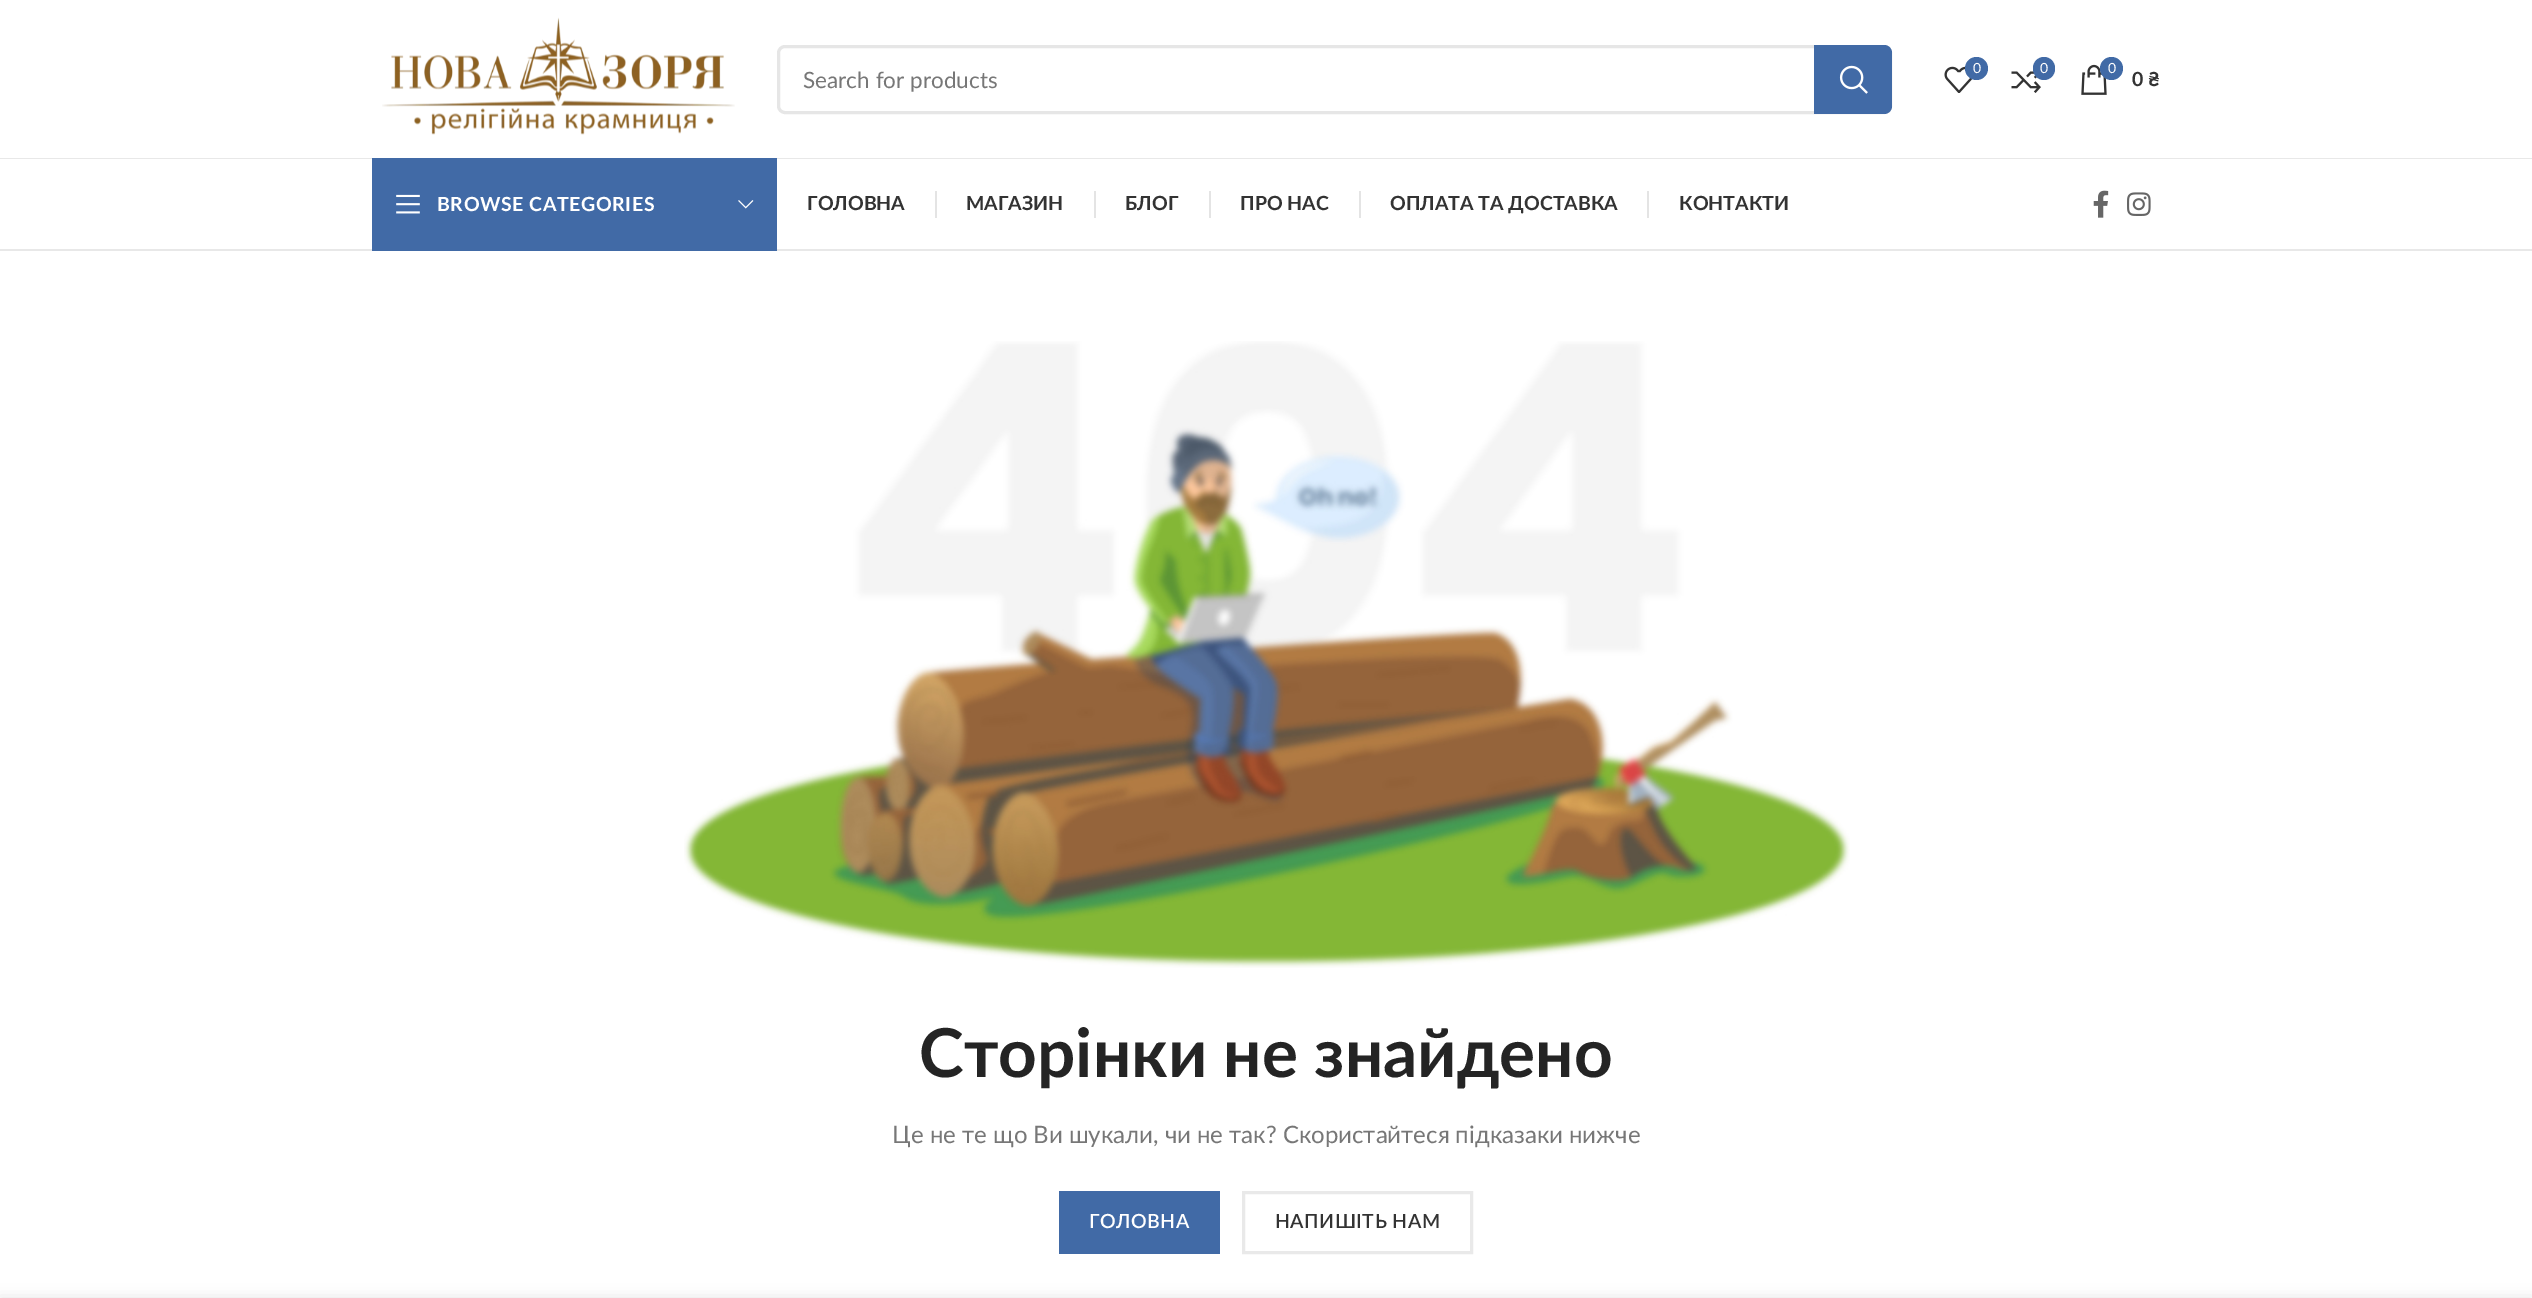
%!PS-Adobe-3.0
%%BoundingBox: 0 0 2532 1298
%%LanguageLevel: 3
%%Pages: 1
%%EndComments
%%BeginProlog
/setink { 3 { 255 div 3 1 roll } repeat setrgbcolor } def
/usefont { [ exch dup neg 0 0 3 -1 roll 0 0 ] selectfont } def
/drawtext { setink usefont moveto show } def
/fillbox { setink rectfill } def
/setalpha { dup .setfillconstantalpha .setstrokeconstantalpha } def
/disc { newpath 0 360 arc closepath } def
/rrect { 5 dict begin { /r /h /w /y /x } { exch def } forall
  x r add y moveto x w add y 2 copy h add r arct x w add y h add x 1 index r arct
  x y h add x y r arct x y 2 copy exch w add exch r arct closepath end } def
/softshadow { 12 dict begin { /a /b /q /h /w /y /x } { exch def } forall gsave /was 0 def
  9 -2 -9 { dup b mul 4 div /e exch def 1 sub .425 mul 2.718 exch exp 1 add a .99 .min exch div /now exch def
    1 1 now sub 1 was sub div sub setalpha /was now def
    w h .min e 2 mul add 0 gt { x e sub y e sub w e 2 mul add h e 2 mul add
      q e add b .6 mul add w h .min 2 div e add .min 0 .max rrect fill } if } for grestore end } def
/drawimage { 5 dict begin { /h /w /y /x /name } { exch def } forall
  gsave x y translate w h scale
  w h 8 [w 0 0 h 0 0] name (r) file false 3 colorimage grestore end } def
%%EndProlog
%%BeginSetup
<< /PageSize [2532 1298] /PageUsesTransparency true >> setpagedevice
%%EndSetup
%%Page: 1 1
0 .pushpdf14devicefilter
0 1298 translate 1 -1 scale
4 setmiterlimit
0 0 2532 1298 255 255 255 fillbox
0 158 2532 1 232 232 232 fillbox
(assets/img1.rgb) 382 17 353 118 drawimage
230 230 230 setink
3 setlinewidth
778.5 46.5 1112 66 6.5 rrect stroke
(Search for products) 803 88 /Lato-Regular 22.5 119 119 119 drawtext
65 106 166 setink
1814 45 moveto 1884 45 lineto 1888.5 45 1892 48.5 1892 53 curveto 1892 106 lineto 1892 110.5 1888.5 114 1884 114 curveto 1814 114 lineto closepath fill
(assets/img2.rgb) 1839 65 29 29 drawimage
(assets/img3.rgb) 1944 66 29 27 drawimage
1976.5 68.5 11.5 disc fill
(0) 1973 73 /Lato-Regular 14 255 255 255 drawtext
(assets/img4.rgb) 2011 71 30 22 drawimage
65 106 166 setink
2033 57 22 23 11 rrect fill
(0) 2040 73 /Lato-Regular 14 255 255 255 drawtext
(assets/img5.rgb) 2081 64 26 31 drawimage
65 106 166 setink
2111.5 68.5 11.5 disc fill
(0) 2108 73 /Lato-Regular 14 255 255 255 drawtext
(0 ₴) 2132 86 /Lato-Bold 19.5 51 51 51 drawtext
0 249 2532 2 232 232 232 fillbox
372 158 405 93 65 106 166 fillbox
(assets/img6.rgb) 396 194 24 20 drawimage
255 255 255 setink
437 211 moveto 0.6 0 (BROWSE CATEGORIES) ashow
(assets/img7.rgb) 738 200 16 9 drawimage
(ГОЛОВНА) 807 210 /Lato-Bold 19.5 51 51 51 drawtext
935 191 2 27 228 228 228 fillbox
(МАГАЗИН) 966 210 /Lato-Bold 19.5 51 51 51 drawtext
1094 191 2 27 228 228 228 fillbox
(БЛОГ) 1125 210 /Lato-Bold 19.5 51 51 51 drawtext
1209 191 2 27 228 228 228 fillbox
(ПРО НАС) 1240 210 /Lato-Bold 19.5 51 51 51 drawtext
1359 191 2 27 228 228 228 fillbox
(ОПЛАТА ТА ДОСТАВКА) 1390 210 /Lato-Bold 19.5 51 51 51 drawtext
1647 191 2 27 228 228 228 fillbox
(КОНТАКТИ) 1679 210 /Lato-Bold 19.5 51 51 51 drawtext
(assets/img8.rgb) 2093 190 16 28 drawimage
(assets/img9.rgb) 2127 192 24 24 drawimage
(assets/img10.rgb) 684 341 1166 627 drawimage
(Сторінки не знайдено) 919 1077 /Lato-Bold 67.5 36 36 36 drawtext
(Це не те що Ви шукали, чи не так? Скористайтеся підказаки нижче) 892 1143 /Lato-Regular 24 119 119 119 drawtext
1059 1191 161 63 65 106 166 fillbox
/Lato-SemiBold 19.5 usefont
255 255 255 setink
1089 1228 moveto 0.5 0 (ГОЛОВНА) ashow
233 233 233 setink
1243.5 1192.5 228 60 rectstroke
51 51 51 setink
1275 1228 moveto 0.5 0 (НАПИШІТЬ НАМ) ashow
0 0 0 setink
0 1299 2532 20 0 7 0.14 softshadow
.poppdf14devicefilter showpage
%%EOF
